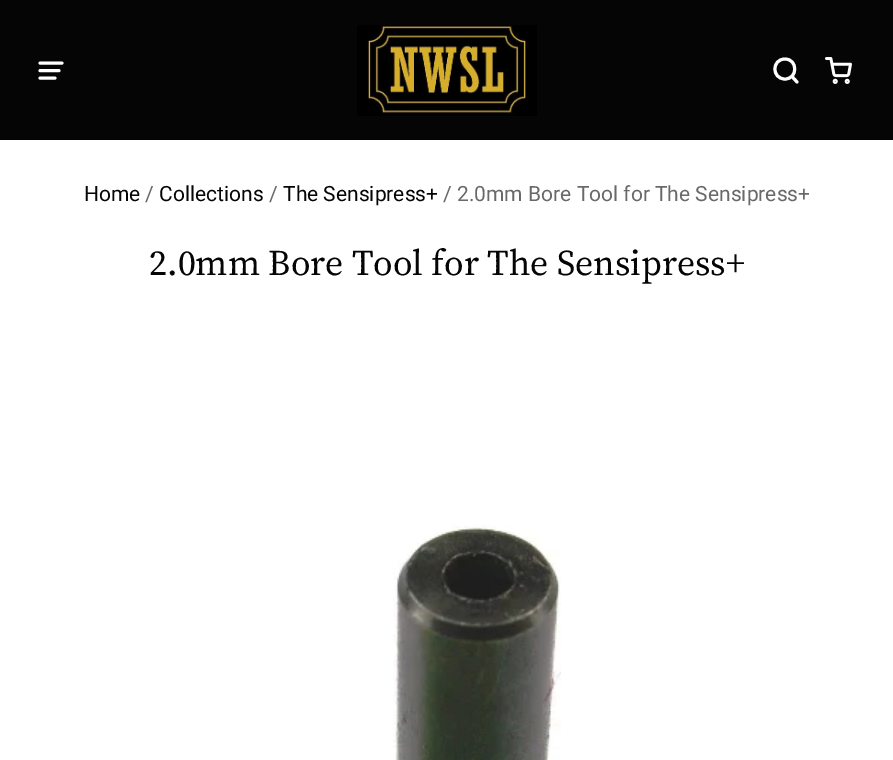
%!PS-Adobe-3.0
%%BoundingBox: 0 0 893 760
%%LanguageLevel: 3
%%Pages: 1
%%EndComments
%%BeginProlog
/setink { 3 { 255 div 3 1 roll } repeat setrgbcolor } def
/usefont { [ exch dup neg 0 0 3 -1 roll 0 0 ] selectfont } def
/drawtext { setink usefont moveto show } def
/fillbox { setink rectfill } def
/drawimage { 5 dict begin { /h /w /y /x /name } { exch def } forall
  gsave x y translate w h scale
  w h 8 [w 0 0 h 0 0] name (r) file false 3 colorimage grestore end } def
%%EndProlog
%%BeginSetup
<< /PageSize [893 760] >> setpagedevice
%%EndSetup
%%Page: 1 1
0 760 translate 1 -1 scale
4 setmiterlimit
0 0 893 760 255 255 255 fillbox
0 0 893 140 5 5 5 fillbox
255 255 255 setink
3 setlinewidth
1 setlinecap
1 setlinejoin
40 63 moveto 62 63 lineto 40 70.5 moveto 59 70.5 lineto 40 78 moveto 55 78 lineto stroke
(assets/img1.rgb) 357 25 180 91 drawimage
785 59 moveto 771.5 59 771.5 79 785 79 curveto 798 79 798 59 785 59 curveto closepath 797 82 moveto 792 76.5 lineto closepath stroke
(assets/img2.rgb) 825 57 27 27 drawimage
(Home) 84 201 /Roboto-Regular 21 5 5 5 drawtext
(/) 145 201 /Roboto-Regular 21 105 105 105 drawtext
(Collections) 159 201 /Roboto-Regular 21 5 5 5 drawtext
(/) 269 201 /Roboto-Regular 21 105 105 105 drawtext
(The Sensipress+) 283 201 /Roboto-Regular 21 5 5 5 drawtext
(/ 2.0mm Bore Tool for The Sensipress+) 443 201 /Roboto-Regular 21 105 105 105 drawtext
(2.0mm Bore Tool for The Sensipress+) 149 275 /SourceSerif4-Regular 36 5 5 5 drawtext
(assets/img3.rgb) 393 525 168 235 drawimage
showpage
%%EOF
